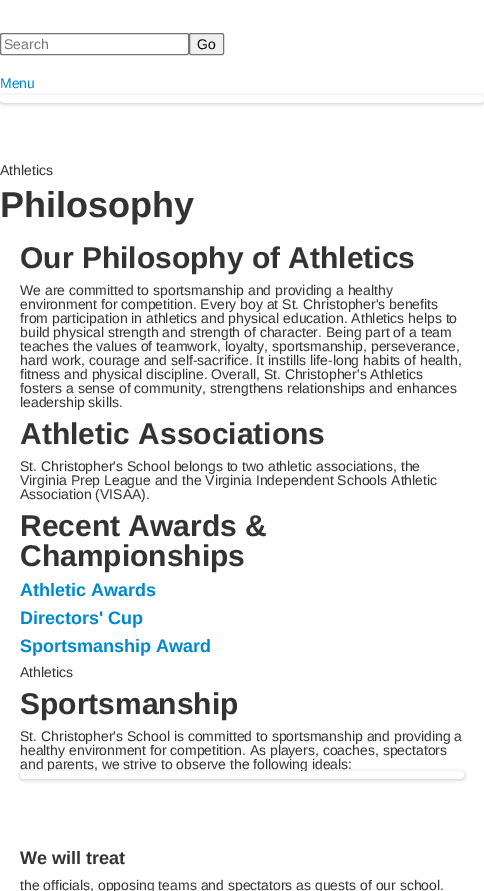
%!PS-Adobe-3.0
%%BoundingBox: 0 0 484 891
%%LanguageLevel: 3
%%Pages: 1
%%EndComments
%%BeginProlog
/setink { 3 { 255 div 3 1 roll } repeat setrgbcolor } def
/usefont { [ exch dup neg 0 0 3 -1 roll 0 0 ] selectfont } def
/drawtext { setink usefont moveto show } def
/fillbox { setink rectfill } def
/setalpha { dup .setfillconstantalpha .setstrokeconstantalpha } def
/rrect { 5 dict begin { /r /h /w /y /x } { exch def } forall
  x r add y moveto x w add y 2 copy h add r arct x w add y h add x 1 index r arct
  x y h add x y r arct x y 2 copy exch w add exch r arct closepath end } def
/softshadow { 12 dict begin { /a /b /q /h /w /y /x } { exch def } forall gsave /was 0 def
  9 -2 -9 { dup b mul 4 div /e exch def 1 sub .425 mul 2.718 exch exp 1 add a .99 .min exch div /now exch def
    1 1 now sub 1 was sub div sub setalpha /was now def
    w h .min e 2 mul add 0 gt { x e sub y e sub w e 2 mul add h e 2 mul add
      q e add b .6 mul add w h .min 2 div e add .min 0 .max rrect fill } if } for grestore end } def
%%EndProlog
%%BeginSetup
<< /PageSize [484 891] /PageUsesTransparency true >> setpagedevice
%%EndSetup
%%Page: 1 1
0 .pushpdf14devicefilter
0 891 translate 1 -1 scale
4 setmiterlimit
0 0 484 891 255 255 255 fillbox
118 118 118 setink
0.5 33.5 188 21 1.5 rrect stroke
(Search) 4 49 /LiberationSans-Regular 14 117 117 117 drawtext
239 239 239 setink
189.5 33.5 34 21 1.5 rrect gsave fill grestore
118 118 118 setink
stroke
(Go) 197 49 /LiberationSans-Regular 14 0 0 0 drawtext
(Menu) 0 88 /LiberationSans-Regular 14 0 136 204 drawtext
0 0 0 setink
0 96 484 8 4 2 0.2 softshadow
255 255 255 setink
0 95 484 8 4 rrect fill
(Athletics) 0 175 /LiberationSans-Regular 14 51 51 51 drawtext
(Philosophy) 0 217 /LiberationSans-Bold 36 51 51 51 drawtext
(Our Philosophy of Athletics) 20 268 /LiberationSans-Bold 30 51 51 51 drawtext
(We are committed to sportsmanship and providing a healthy) 20 295 /LiberationSans-Regular 14 51 51 51 drawtext
(environment for competition. Every boy at St. Christopher's benefits) 20 309 /LiberationSans-Regular 14 51 51 51 drawtext
(from participation in athletics and physical education. Athletics helps to) 20 323 /LiberationSans-Regular 14 51 51 51 drawtext
(build physical strength and strength of character. Being part of a team) 20 337 /LiberationSans-Regular 14 51 51 51 drawtext
(teaches the values of teamwork, loyalty, sportsmanship, perseverance,) 20 351 /LiberationSans-Regular 14 51 51 51 drawtext
(hard work, courage and self-sacrifice. It instills life-long habits of health,) 20 365 /LiberationSans-Regular 14 51 51 51 drawtext
(fitness and physical discipline. Overall, St. Christopher's Athletics) 20 379 /LiberationSans-Regular 14 51 51 51 drawtext
(fosters a sense of community, strengthens relationships and enhances) 20 393 /LiberationSans-Regular 14 51 51 51 drawtext
(leadership skills.) 20 407 /LiberationSans-Regular 14 51 51 51 drawtext
(Athletic Associations) 20 444 /LiberationSans-Bold 30 51 51 51 drawtext
(St. Christopher's School belongs to two athletic associations, the) 20 471 /LiberationSans-Regular 14 51 51 51 drawtext
(Virginia Prep League and the Virginia Independent Schools Athletic) 20 485 /LiberationSans-Regular 14 51 51 51 drawtext
(Association \(VISAA\).) 20 499 /LiberationSans-Regular 14 51 51 51 drawtext
(Recent Awards &) 20 536 /LiberationSans-Bold 30 51 51 51 drawtext
(Championships) 20 566 /LiberationSans-Bold 30 51 51 51 drawtext
(Athletic Awards) 20 596 /LiberationSans-Bold 18 0 136 204 drawtext
(Directors' Cup) 20 624 /LiberationSans-Bold 18 0 136 204 drawtext
(Sportsmanship Award) 20 652 /LiberationSans-Bold 18 0 136 204 drawtext
(Athletics) 20 677 /LiberationSans-Regular 14 51 51 51 drawtext
(Sportsmanship) 20 714 /LiberationSans-Bold 30 51 51 51 drawtext
(St. Christopher's School is committed to sportsmanship and providing a) 20 741 /LiberationSans-Regular 14 51 51 51 drawtext
(healthy environment for competition. As players, coaches, spectators) 20 755 /LiberationSans-Regular 14 51 51 51 drawtext
(and parents, we strive to observe the following ideals:) 20 769 /LiberationSans-Regular 14 51 51 51 drawtext
0 0 0 setink
20 772 444 8 4 2 0.2 softshadow
255 255 255 setink
20 771 444 8 4 rrect fill
(We will treat) 20 864 /LiberationSans-Bold 18 51 51 51 drawtext
(the officials, opposing teams and spectators as guests of our school.) 20 890 /LiberationSans-Regular 14 51 51 51 drawtext
.poppdf14devicefilter showpage
%%EOF
